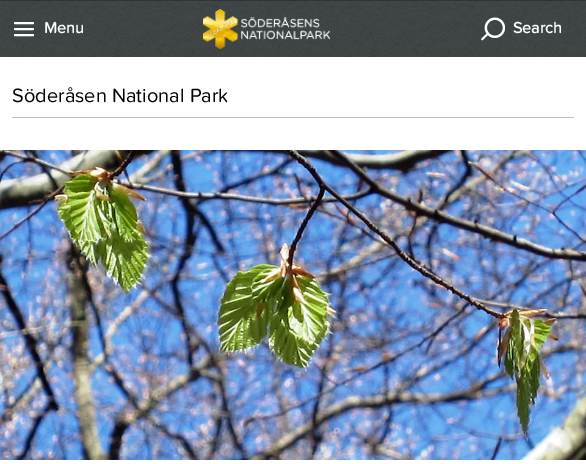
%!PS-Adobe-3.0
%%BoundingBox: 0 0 586 464
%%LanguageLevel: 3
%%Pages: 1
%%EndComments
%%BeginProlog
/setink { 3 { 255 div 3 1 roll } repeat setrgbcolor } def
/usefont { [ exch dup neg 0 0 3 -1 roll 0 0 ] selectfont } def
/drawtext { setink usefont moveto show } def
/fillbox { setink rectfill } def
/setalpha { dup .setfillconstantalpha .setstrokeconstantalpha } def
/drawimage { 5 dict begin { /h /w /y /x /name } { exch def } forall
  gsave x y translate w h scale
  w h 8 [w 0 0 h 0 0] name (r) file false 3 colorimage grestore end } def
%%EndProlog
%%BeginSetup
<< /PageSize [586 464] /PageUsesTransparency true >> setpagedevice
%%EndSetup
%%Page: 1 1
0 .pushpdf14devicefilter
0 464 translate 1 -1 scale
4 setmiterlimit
0 0 586 464 255 255 255 fillbox
(assets/img1.rgb) 0 0 586 57 drawimage
0.25 setalpha
0 0 586 1 0 0 0 fillbox
1 setalpha
255 255 255 setink
2 setlinewidth
1 setlinecap
1 setlinejoin
15 29 moveto 33 29 lineto 15 23 moveto 33 23 lineto 15 35 moveto 33 35 lineto stroke
(Menu) 44 33 /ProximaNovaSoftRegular-Bold 16 255 255 255 drawtext
(assets/img2.rgb) 203 9 127 40 drawimage
(assets/img3.rgb) 481 17 24 24 drawimage
(Search) 513 33 /ProximaNovaSoftRegular-Bold 16 255 255 255 drawtext
12 117 562 1 192 192 192 fillbox
(Söderåsen National Park) 12 102 /ProximaNovaSoftRegular-Regular 20 0 0 0 drawtext
(assets/img4.rgb) 0 150 586 310 drawimage
.poppdf14devicefilter showpage
%%EOF
